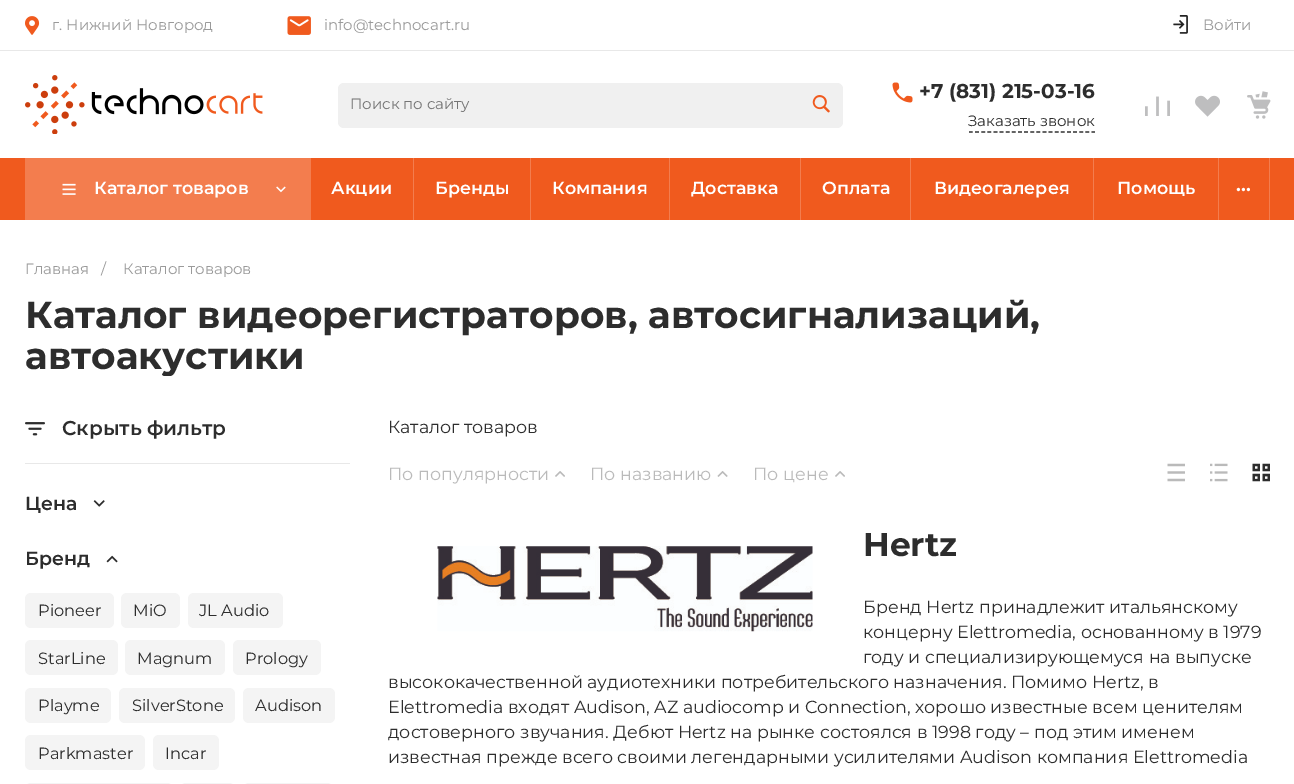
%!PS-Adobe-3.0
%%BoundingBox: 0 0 1294 784
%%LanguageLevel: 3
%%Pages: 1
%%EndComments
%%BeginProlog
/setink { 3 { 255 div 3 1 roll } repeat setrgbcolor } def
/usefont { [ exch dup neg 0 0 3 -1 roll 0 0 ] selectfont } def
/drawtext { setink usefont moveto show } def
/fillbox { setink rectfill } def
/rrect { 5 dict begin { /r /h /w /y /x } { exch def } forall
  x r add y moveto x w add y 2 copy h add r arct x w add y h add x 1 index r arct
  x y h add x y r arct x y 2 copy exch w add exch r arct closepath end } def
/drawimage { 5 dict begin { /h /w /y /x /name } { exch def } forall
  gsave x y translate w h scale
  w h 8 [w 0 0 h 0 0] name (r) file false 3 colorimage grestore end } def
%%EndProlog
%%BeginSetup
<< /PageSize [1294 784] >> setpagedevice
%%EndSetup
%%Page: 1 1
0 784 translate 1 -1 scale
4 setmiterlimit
0 0 1294 784 255 255 255 fillbox
0 50 1294 1 232 232 232 fillbox
(assets/img1.rgb) 25 16 15 19 drawimage
(г. Нижний Новгород) 52 30 /Montserrat-Regular 15 154 154 154 drawtext
(assets/img2.rgb) 287 16 24 19 drawimage
(info@technocart.ru) 324 30 /Montserrat-Regular 15 154 154 154 drawtext
(assets/img3.rgb) 1173 15 15 19 drawimage
(Войти) 1203 30 /Montserrat-Regular 15 154 154 154 drawtext
(assets/img4.rgb) 25 75 238 59 drawimage
240 240 240 setink
338 83 505 45 6 rrect fill
(Поиск по сайту) 350 109 /Montserrat-Regular 15 117 117 117 drawtext
(assets/img5.rgb) 812 95 18 18 drawimage
(assets/img6.rgb) 892 82 21 21 drawimage
(+7 \(831\) 215-03-16) 919 98 /Montserrat-Bold 20 45 45 45 drawtext
1.2 setlinewidth
[3.75 2.38] 0 setdash
969 132 moveto 1095 132 lineto stroke
(Заказать звонок) 968 126 /Montserrat-Regular 15 45 45 45 drawtext
(assets/img7.rgb) 1145 96 25 20 drawimage
(assets/img8.rgb) 1195 95 25 22 drawimage
(assets/img9.rgb) 1247 91 24 28 drawimage
0 158 1294 62 240 90 30 fillbox
25 158 286 62 243 125 78 fillbox
(assets/img10.rgb) 62 183 14 12 drawimage
(Каталог товаров) 94 194 /Montserrat-SemiBold 17.5 255 255 255 drawtext
(assets/img11.rgb) 276 186 10 7 drawimage
413 158 1 62 243 125 78 fillbox
(Акции) 331 194 /Montserrat-SemiBold 17.5 255 255 255 drawtext
530 158 1 62 243 125 78 fillbox
(Бренды) 435 194 /Montserrat-SemiBold 17.5 255 255 255 drawtext
669 158 1 62 243 125 78 fillbox
(Компания) 552 194 /Montserrat-SemiBold 17.5 255 255 255 drawtext
800 158 1 62 243 125 78 fillbox
(Доставка) 691 194 /Montserrat-SemiBold 17.5 255 255 255 drawtext
910 158 1 62 243 125 78 fillbox
(Оплата) 822 194 /Montserrat-SemiBold 17.5 255 255 255 drawtext
1093 158 1 62 243 125 78 fillbox
(Видеогалерея) 934 194 /Montserrat-SemiBold 17.5 255 255 255 drawtext
1218 158 1 62 243 125 78 fillbox
(Помощь) 1117 194 /Montserrat-SemiBold 17.5 255 255 255 drawtext
1269 158 1 62 243 125 78 fillbox
(...) 1236 191 /Montserrat-SemiBold 20 255 255 255 drawtext
(Главная) 25 274 /Montserrat-Regular 15 154 154 154 drawtext
(/) 101 274 /Montserrat-Regular 15 154 154 154 drawtext
(Каталог товаров) 123 274 /Montserrat-Regular 15 154 154 154 drawtext
(Каталог видеорегистраторов, автосигнализаций,) 25 328 /Montserrat-Bold 37.5 45 45 45 drawtext
gsave
0 294 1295 82 rectclip
(автоакустики) 25 369 /Montserrat-Bold 37.5 45 45 45 drawtext
grestore
(assets/img12.rgb) 25 422 20 14 drawimage
(Скрыть фильтр) 62 435 /Montserrat-SemiBold 20 45 45 45 drawtext
25 463 325 1 232 232 232 fillbox
(Цена) 25 510 /Montserrat-SemiBold 19 45 45 45 drawtext
(assets/img13.rgb) 93 500 12 7 drawimage
(Бренд) 25 565 /Montserrat-SemiBold 19 45 45 45 drawtext
(assets/img14.rgb) 106 555 12 8 drawimage
244 244 244 setink
25 593 89 35 6 rrect fill
(Pioneer) 38 616 /Montserrat-Regular 16.25 45 45 45 drawtext
244 244 244 setink
121 593 59 35 6 rrect fill
(MiO) 133 616 /Montserrat-Regular 16.25 45 45 45 drawtext
244 244 244 setink
188 593 95 35 6 rrect fill
(JL Audio) 199 616 /Montserrat-Regular 16.25 45 45 45 drawtext
244 244 244 setink
25 640 93 35 6 rrect fill
(StarLine) 38 664 /Montserrat-Regular 16.25 45 45 45 drawtext
244 244 244 setink
125 640 100 35 6 rrect fill
(Magnum) 137 664 /Montserrat-Regular 16.25 45 45 45 drawtext
244 244 244 setink
233 640 88 35 6 rrect fill
(Prology) 245 664 /Montserrat-Regular 16.25 45 45 45 drawtext
244 244 244 setink
25 688 86 35 6 rrect fill
(Playme) 38 711 /Montserrat-Regular 16.25 45 45 45 drawtext
244 244 244 setink
119 688 116 35 6 rrect fill
(SilverStone) 132 711 /Montserrat-Regular 16.25 45 45 45 drawtext
244 244 244 setink
243 688 92 35 6 rrect fill
(Audison) 255 711 /Montserrat-Regular 16.25 45 45 45 drawtext
244 244 244 setink
25 735 120 35 6 rrect fill
(Parkmaster) 38 759 /Montserrat-Regular 16.25 45 45 45 drawtext
244 244 244 setink
153 735 66 35 6 rrect fill
(Incar) 165 759 /Montserrat-Regular 16.25 45 45 45 drawtext
244 244 244 setink
25 783 148 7 6 rrect fill
180 783 55 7 6 rrect fill
243 783 90 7 6 rrect fill
(Каталог товаров) 388 433 /Montserrat-Regular 17.5 45 45 45 drawtext
(По популярности) 388 480 /Montserrat-Regular 17.5 186 186 186 drawtext
(assets/img15.rgb) 555 471 10 6 drawimage
(По названию) 590 480 /Montserrat-Regular 17.5 186 186 186 drawtext
(assets/img16.rgb) 717 471 11 6 drawimage
(По цене) 753 480 /Montserrat-Regular 17.5 186 186 186 drawtext
(assets/img15.rgb) 835 471 10 6 drawimage
(assets/img17.rgb) 1167 463 18 19 drawimage
(assets/img18.rgb) 1210 463 18 19 drawimage
(assets/img19.rgb) 1252 463 18 19 drawimage
(Hertz) 863 556 /Montserrat-Bold 33 45 45 45 drawtext
(Бренд Hertz принадлежит итальянскому) 863 613 /Montserrat-Regular 17.5 45 45 45 drawtext
(концерну Elettromedia, основанному в 1979) 863 638 /Montserrat-Regular 17.5 45 45 45 drawtext
(году и специализирующемуся на выпуске) 863 663 /Montserrat-Regular 17.5 45 45 45 drawtext
(высококачественной аудиотехники потребительского назначения. Помимо Hertz, в) 388 688 /Montserrat-Regular 17.5 45 45 45 drawtext
(Elettromedia входят Audison, AZ audiocomp и Connection, хорошо известные всем ценителям) 388 713 /Montserrat-Regular 17.5 45 45 45 drawtext
(достоверного звучания. Дебют Hertz на рынке состоялся в 1998 году – под этим именем) 388 738 /Montserrat-Regular 17.5 45 45 45 drawtext
(известная прежде всего своими легендарными усилителями Audison компания Elettromedia) 388 763 /Montserrat-Regular 17.5 45 45 45 drawtext
(assets/img20.rgb) 437 546 376 86 drawimage
showpage
%%EOF
